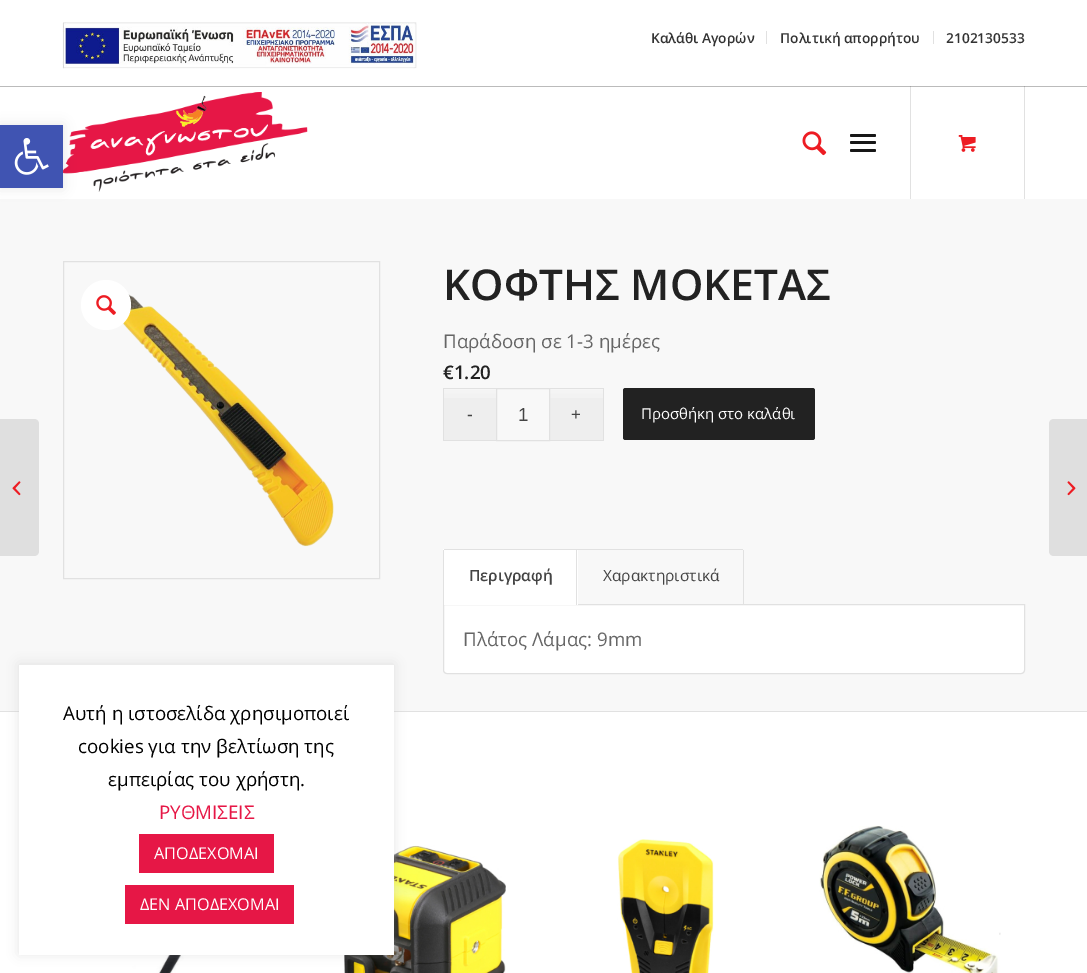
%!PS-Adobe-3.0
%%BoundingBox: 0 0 1087 973
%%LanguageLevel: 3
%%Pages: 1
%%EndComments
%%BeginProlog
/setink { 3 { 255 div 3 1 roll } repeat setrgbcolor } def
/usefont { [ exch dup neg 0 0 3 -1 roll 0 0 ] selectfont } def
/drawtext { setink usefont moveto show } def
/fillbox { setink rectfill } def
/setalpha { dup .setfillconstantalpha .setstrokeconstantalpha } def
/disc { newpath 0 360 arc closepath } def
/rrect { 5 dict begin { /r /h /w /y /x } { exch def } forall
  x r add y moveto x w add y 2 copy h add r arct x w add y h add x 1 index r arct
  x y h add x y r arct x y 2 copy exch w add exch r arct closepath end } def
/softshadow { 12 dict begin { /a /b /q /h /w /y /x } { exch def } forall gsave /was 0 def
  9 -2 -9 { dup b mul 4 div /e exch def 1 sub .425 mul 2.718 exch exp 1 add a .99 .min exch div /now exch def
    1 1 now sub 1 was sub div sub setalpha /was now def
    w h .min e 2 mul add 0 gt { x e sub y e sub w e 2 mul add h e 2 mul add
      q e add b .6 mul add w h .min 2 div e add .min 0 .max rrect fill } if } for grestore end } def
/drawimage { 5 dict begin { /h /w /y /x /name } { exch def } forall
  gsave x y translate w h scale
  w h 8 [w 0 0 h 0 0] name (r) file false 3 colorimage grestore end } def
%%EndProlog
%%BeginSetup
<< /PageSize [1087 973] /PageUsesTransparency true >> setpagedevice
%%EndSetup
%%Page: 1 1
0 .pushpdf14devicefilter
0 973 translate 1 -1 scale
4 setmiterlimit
0 0 1087 973 255 255 255 fillbox
(assets/img3.rgb) 63 92 245 100 drawimage
0 199 1087 512 248 248 248 fillbox
0 0 0 setink
0 125 63 63 0 6 0.1 softshadow
0 125 63 63 64 84 178 fillbox
(assets/img1.rgb) 14 138 35 37 drawimage
1024 86 1 113 225 225 225 fillbox
910 86 1 113 225 225 225 fillbox
gsave
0 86 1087 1 rectclip
0 0 0 setink
0 0 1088 86 0 0.5 1 softshadow
grestore
(assets/img2.rgb) 62 22 355 47 drawimage
766 31 1 13 225 225 225 fillbox
(Καλάθι Αγορών) 651 43 /OpenSans-SemiBold 13.75 51 51 51 drawtext
933 31 1 13 225 225 225 fillbox
(Πολιτική απορρήτου) 780 43 /OpenSans-SemiBold 13.75 51 51 51 drawtext
(2102130533) 946 43 /OpenSans-SemiBold 13.75 51 51 51 drawtext
(assets/img4.rgb) 802 131 25 25 drawimage
23 23 23 setink
850 141 26 3 1.5 rrect fill
850 134 26 3 1.5 rrect fill
850 149 26 3 1.5 rrect fill
(assets/img5.rgb) 958 135 18 17 drawimage
223 223 223 setink
0 419 moveto 34 419 lineto 37 419 39 421 39 424 curveto 39 551 lineto 39 554 37 556 34 556 curveto 0 556 lineto closepath fill
(assets/img6.rgb) 12 481 9 15 drawimage
225 225 225 setink
63.5 261.5 316 317 rectstroke
(assets/img7.rgb) 122 294 212 253 drawimage
255 255 255 setink
106 305 25 disc fill
(assets/img8.rgb) 96 295 20 20 drawimage
(ΚΟΦΤΗΣ ΜΟΚΕΤΑΣ) 443 300 /OpenSans-SemiBold 42.5 34 34 34 drawtext
(Παράδοση σε 1-3 ημέρες) 443 348 /OpenSans-Regular 18.75 102 102 102 drawtext
(€1.20) 443 379 /OpenSans-SemiBold 18.75 34 34 34 drawtext
444 389 52 51 238 238 238 fillbox
(assets/img9.rgb) 444 389 52 9 drawimage
550 389 53 51 238 238 238 fillbox
(assets/img10.rgb) 550 389 53 9 drawimage
(-) 467 420 /LiberationSans-Regular 17 68 68 68 drawtext
443 388 53 1 225 225 225 fillbox
443 440 53 1 225 225 225 fillbox
443 388 1 53 225 225 225 fillbox
496.5 388.5 53 52 rectstroke
(1) 518 421 /LiberationSans-Regular 18.75 68 68 68 drawtext
(+) 571 420 /LiberationSans-Regular 17 68 68 68 drawtext
550 388 54 1 225 225 225 fillbox
603 388 1 53 225 225 225 fillbox
550 440 54 1 225 225 225 fillbox
34 34 34 setink
623 388 192 52 2.5 rrect fill
(Προσθήκη στο καλάθι) 641 419 /OpenSans-Regular 15 255 255 255 drawtext
576 549 167 1 225 225 225 fillbox
255 255 255 setink
443.5 604.5 moveto 1024.5 604.5 lineto 1024.5 670 lineto 1024.5 672 1023 673.5 1021 673.5 curveto 447 673.5 lineto 445 673.5 443.5 672 443.5 670 curveto closepath gsave fill grestore
225 225 225 setink
stroke
443 549 135 56 255 255 255 fillbox
444 549 134 1 225 225 225 fillbox
576 549 1 56 225 225 225 fillbox
443 550 1 55 225 225 225 fillbox
(Περιγραφή) 469 581 /OpenSans-SemiBold 15.5 68 68 68 drawtext
743 550 1 55 225 225 225 fillbox
(Χαρακτηριστικά) 603 581 /OpenSans-Regular 15.5 68 68 68 drawtext
(Πλάτος Λάμας: 9mm) 463 646 /OpenSans-Regular 18.75 102 102 102 drawtext
0 711 1087 1 225 225 225 fillbox
(assets/img11.rgb) 96 955 154 18 drawimage
(assets/img12.rgb) 342 845 164 128 drawimage
(assets/img13.rgb) 617 839 97 134 drawimage
(assets/img14.rgb) 819 825 182 148 drawimage
223 223 223 setink
1054 419 moveto 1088 419 lineto 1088 556 lineto 1054 556 lineto 1051 556 1049 554 1049 551 curveto 1049 424 lineto 1049 421 1051 419 1054 419 curveto closepath fill
(assets/img15.rgb) 1067 481 9 15 drawimage
172 171 171 setink
19 664 375 290 0 6 0.3 softshadow
19 665 375 290 255 255 255 fillbox
(Αυτή η ιστοσελίδα χρησιμοποιεί) 63 720 /OpenSans-Regular 18.75 0 0 0 drawtext
(cookies για την βελτίωση της) 78 753 /OpenSans-Regular 18.75 0 0 0 drawtext
(εμπειρίας του χρήστη.) 108 786 /OpenSans-Regular 18.75 0 0 0 drawtext
(ΡΥΘΜΙΣΕΙΣ) 159 819 /OpenSans-Regular 18.75 230 23 70 drawtext
139 834 135 39 230 23 70 fillbox
(ΑΠΟΔΕΧΟΜΑΙ) 154 859 /OpenSans-Regular 16.25 255 255 255 drawtext
125 885 169 39 230 23 70 fillbox
(ΔΕΝ ΑΠΟΔΕΧΟΜΑΙ) 140 910 /OpenSans-Regular 16.25 255 255 255 drawtext
.poppdf14devicefilter showpage
%%EOF
